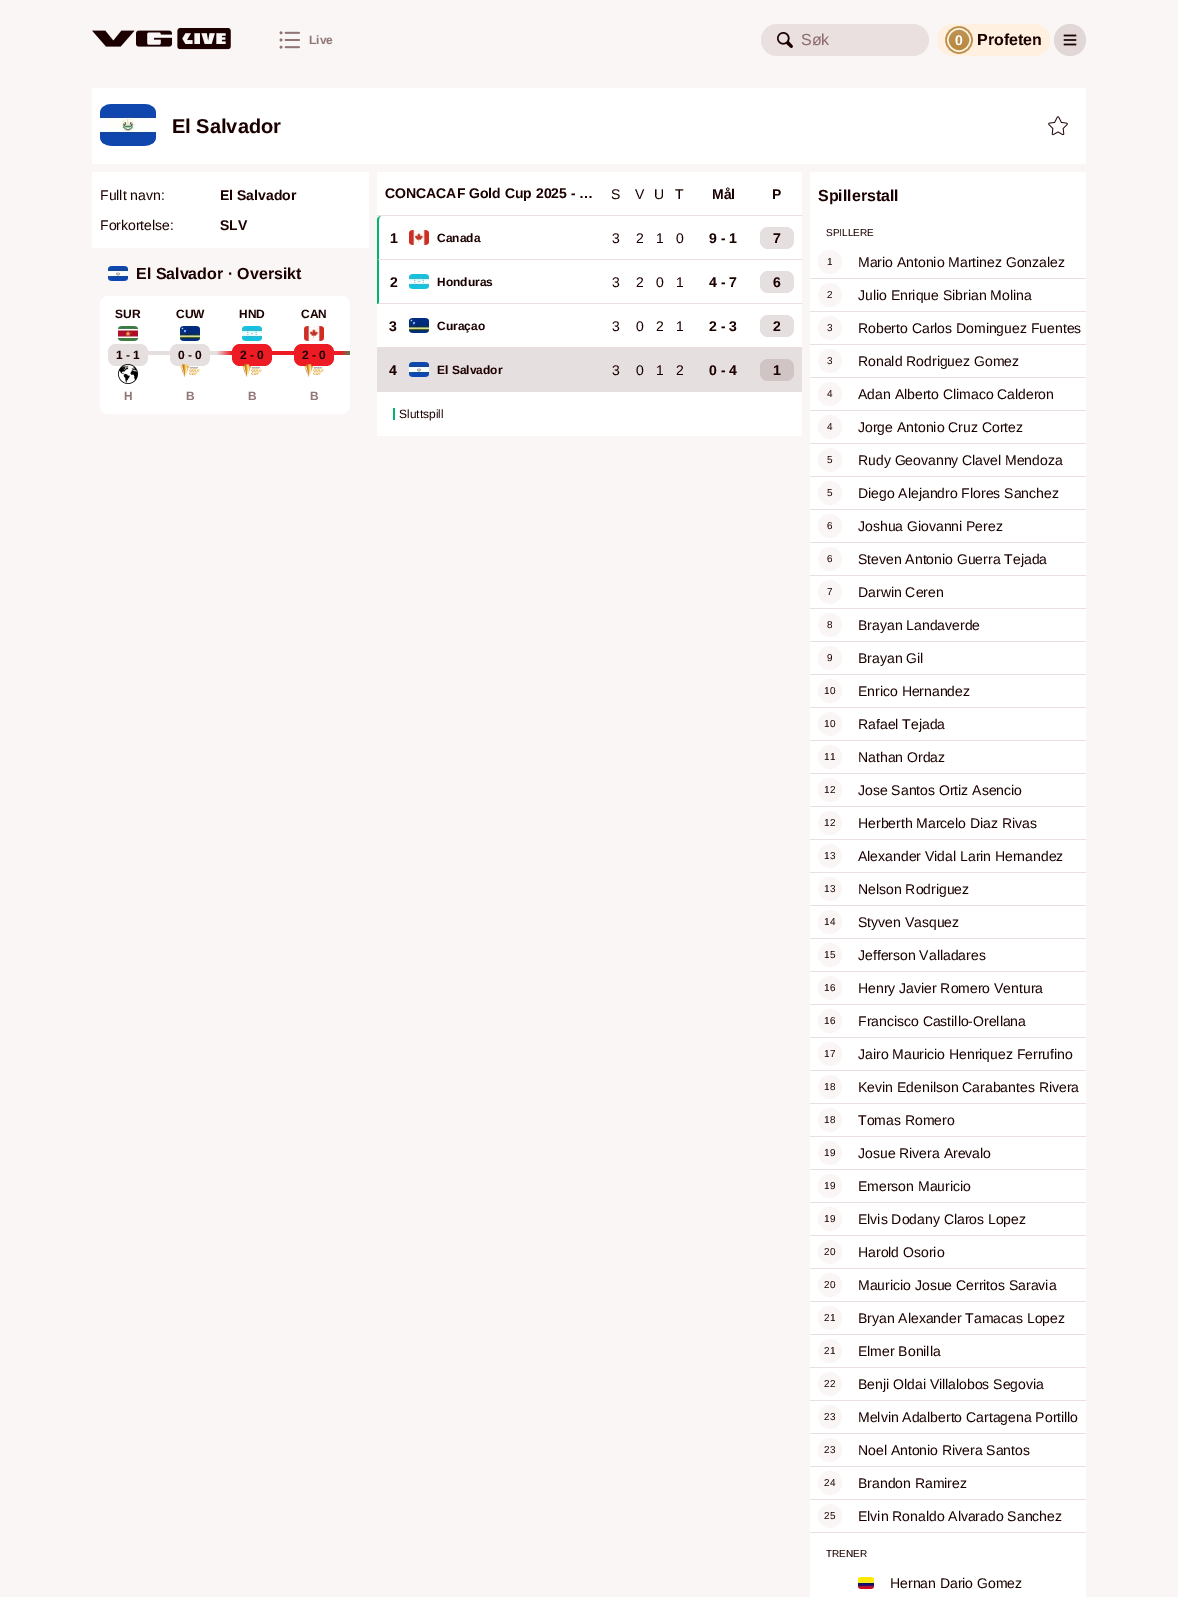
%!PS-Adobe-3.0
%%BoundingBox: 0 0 1178 1597
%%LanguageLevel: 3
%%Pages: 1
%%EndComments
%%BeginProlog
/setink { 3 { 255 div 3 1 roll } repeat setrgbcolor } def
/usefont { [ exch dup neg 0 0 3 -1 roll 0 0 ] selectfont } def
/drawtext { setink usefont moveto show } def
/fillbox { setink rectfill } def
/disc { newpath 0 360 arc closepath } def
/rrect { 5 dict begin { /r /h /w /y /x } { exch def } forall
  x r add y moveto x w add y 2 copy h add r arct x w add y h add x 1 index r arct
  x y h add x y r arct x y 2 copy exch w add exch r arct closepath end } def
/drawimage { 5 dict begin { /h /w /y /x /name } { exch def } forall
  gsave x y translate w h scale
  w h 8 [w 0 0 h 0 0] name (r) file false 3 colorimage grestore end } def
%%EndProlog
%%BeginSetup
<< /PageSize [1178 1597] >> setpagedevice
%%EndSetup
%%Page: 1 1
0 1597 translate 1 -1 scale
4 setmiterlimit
0 0 1178 1597 250 246 246 fillbox
(assets/img1.rgb) 92 28 139 22 drawimage
(assets/img2.rgb) 279 31 21 18 drawimage
(Live) 309 44 /LiberationSans-Bold 12 146 119 119 drawtext
235 224 224 setink
761 24 168 32 16 rrect fill
(assets/img3.rgb) 777 32 16 16 drawimage
(Søk) 801 45 /LiberationSans-Regular 16 138 106 106 drawtext
255 240 223 setink
937 24 113 32 16 rrect fill
gsave 959 27.5 moveto 975.5 27.5 975.5 52.5 959 52.5 curveto 942.5 52.5 942.5 27.5 959 27.5 curveto clip newpath
<< /ShadingType 2 /ColorSpace /DeviceRGB /Coords [959 28 959 48] /Extend [true true] /Function << /FunctionType 2 /Domain [0 1] /C0 [0.741 0.58 0.341] /C1 [0.729 0.537 0.251] /N 1 >> >> shfill grestore
252 242 224 setink
2.2 setlinewidth
959 40 11.5 disc stroke
188 143 76 setink
1.6 setlinewidth
959 40 13 disc stroke
(0) 955 45 /LiberationSans-Bold 14 255 255 255 drawtext
(Profeten) 977 45 /LiberationSans-Bold 16 28 0 0 drawtext
225 215 215 setink
1070 40 16 disc fill
(assets/img4.rgb) 1063 34 14 12 drawimage
92 88 994 76 255 255 255 fillbox
(assets/img5.rgb) 100 104 56 42 drawimage
(El Salvador) 172 133 /LiberationSans-Bold 20 28 0 0 drawtext
(assets/img6.rgb) 1048 116 20 20 drawimage
92 172 277 76 255 255 255 fillbox
(Fullt navn:) 100 200 /LiberationSans-Regular 14 28 0 0 drawtext
(El Salvador) 220 200 /LiberationSans-Bold 14 28 0 0 drawtext
(Forkortelse:) 100 230 /LiberationSans-Regular 14 28 0 0 drawtext
(SLV) 220 230 /LiberationSans-Bold 14 28 0 0 drawtext
377 172 425 264 255 255 255 fillbox
377 215 425 1 235 224 224 fillbox
(CONCACAF Gold Cup 2025 - …) 385 198 /LiberationSans-Bold 14 28 0 0 drawtext
(S) 611 199 /LiberationSans-Regular 14 28 0 0 drawtext
(V) 635 199 /LiberationSans-Regular 14 28 0 0 drawtext
(U) 654 199 /LiberationSans-Regular 14 28 0 0 drawtext
(T) 675 199 /LiberationSans-Regular 14 28 0 0 drawtext
(Mål) 712 199 /LiberationSans-Bold 14 28 0 0 drawtext
(P) 772 199 /LiberationSans-Bold 14 28 0 0 drawtext
377 259 425 1 235 224 224 fillbox
0 182 109 setink
381 216 moveto 379 216 377 218 377 220 curveto 377 260 lineto 379 259 lineto 379 220 lineto 379 218 380 216 381 216 curveto closepath fill
(1) 390 243 /LiberationSans-Bold 14 28 0 0 drawtext
(assets/img7.rgb) 409 230 20 15 drawimage
(Canada) 437 242 /LiberationSans-Bold 12 28 0 0 drawtext
(3) 612 243 /LiberationSans-Regular 14 28 0 0 drawtext
(2) 636 243 /LiberationSans-Regular 14 28 0 0 drawtext
(1) 656 243 /LiberationSans-Regular 14 28 0 0 drawtext
(0) 676 243 /LiberationSans-Regular 14 28 0 0 drawtext
(9 - 1) 709 243 /LiberationSans-Bold 14 28 0 0 drawtext
230 223 223 setink
760 227 34 22 8 rrect fill
(7) 773 243 /LiberationSans-Bold 14 28 0 0 drawtext
377 303 425 1 235 224 224 fillbox
0 182 109 setink
377 304 moveto 377 260 lineto 379 260 lineto 379 303 lineto closepath fill
(2) 390 287 /LiberationSans-Bold 14 28 0 0 drawtext
(assets/img8.rgb) 409 274 20 15 drawimage
(Honduras) 437 286 /LiberationSans-Bold 12 28 0 0 drawtext
(3) 612 287 /LiberationSans-Regular 14 28 0 0 drawtext
(2) 636 287 /LiberationSans-Regular 14 28 0 0 drawtext
(0) 656 287 /LiberationSans-Regular 14 28 0 0 drawtext
(1) 676 287 /LiberationSans-Regular 14 28 0 0 drawtext
(4 - 7) 709 287 /LiberationSans-Bold 14 28 0 0 drawtext
230 223 223 setink
760 271 34 22 8 rrect fill
(6) 773 287 /LiberationSans-Bold 14 28 0 0 drawtext
377 347 425 1 235 224 224 fillbox
(3) 389 331 /LiberationSans-Bold 14 28 0 0 drawtext
(assets/img9.rgb) 409 318 20 15 drawimage
(Curaçao) 437 330 /LiberationSans-Bold 12 28 0 0 drawtext
(3) 612 331 /LiberationSans-Regular 14 28 0 0 drawtext
(0) 636 331 /LiberationSans-Regular 14 28 0 0 drawtext
(2) 656 331 /LiberationSans-Regular 14 28 0 0 drawtext
(1) 676 331 /LiberationSans-Regular 14 28 0 0 drawtext
(2 - 3) 709 331 /LiberationSans-Bold 14 28 0 0 drawtext
230 223 223 setink
760 315 34 22 8 rrect fill
(2) 773 331 /LiberationSans-Bold 14 28 0 0 drawtext
377 348 425 43 230 223 223 fillbox
377 391 425 1 235 224 224 fillbox
(4) 389 375 /LiberationSans-Bold 14 28 0 0 drawtext
(assets/img10.rgb) 409 362 20 15 drawimage
(El Salvador) 437 374 /LiberationSans-Bold 12 28 0 0 drawtext
(3) 612 375 /LiberationSans-Regular 14 28 0 0 drawtext
(0) 636 375 /LiberationSans-Regular 14 28 0 0 drawtext
(1) 656 375 /LiberationSans-Regular 14 28 0 0 drawtext
(2) 676 375 /LiberationSans-Regular 14 28 0 0 drawtext
(0 - 4) 709 375 /LiberationSans-Bold 14 28 0 0 drawtext
208 196 196 setink
760 359 34 22 8 rrect fill
(1) 773 375 /LiberationSans-Bold 14 28 0 0 drawtext
393 408 2 12 0 182 109 fillbox
(Sluttspill) 399 418 /LiberationSans-Regular 12 28 0 0 drawtext
810 172 276 1425 255 255 255 fillbox
(Spillerstall) 818 201 /LiberationSans-Bold 16 28 0 0 drawtext
(SPILLERE) 826 236 /LiberationSans-Regular 10 28 0 0 drawtext
810 278 276 1 235 224 224 fillbox
250 246 246 setink
830 262 12 disc fill
(1) 827 265 /LiberationSans-Regular 10 28 0 0 drawtext
(Mario Antonio Martinez Gonzalez) 858 267 /LiberationSans-Regular 14 28 0 0 drawtext
810 311 276 1 235 224 224 fillbox
250 246 246 setink
830 295 12 disc fill
(2) 827 298 /LiberationSans-Regular 10 28 0 0 drawtext
(Julio Enrique Sibrian Molina) 858 300 /LiberationSans-Regular 14 28 0 0 drawtext
810 344 276 1 235 224 224 fillbox
250 246 246 setink
830 328 12 disc fill
(3) 827 331 /LiberationSans-Regular 10 28 0 0 drawtext
(Roberto Carlos Dominguez Fuentes) 858 333 /LiberationSans-Regular 14 28 0 0 drawtext
810 377 276 1 235 224 224 fillbox
250 246 246 setink
830 361 12 disc fill
(3) 827 364 /LiberationSans-Regular 10 28 0 0 drawtext
(Ronald Rodriguez Gomez) 858 366 /LiberationSans-Regular 14 28 0 0 drawtext
810 410 276 1 235 224 224 fillbox
250 246 246 setink
830 394 12 disc fill
(4) 827 397 /LiberationSans-Regular 10 28 0 0 drawtext
(Adan Alberto Climaco Calderon) 858 399 /LiberationSans-Regular 14 28 0 0 drawtext
810 443 276 1 235 224 224 fillbox
250 246 246 setink
830 427 12 disc fill
(4) 827 430 /LiberationSans-Regular 10 28 0 0 drawtext
(Jorge Antonio Cruz Cortez) 858 432 /LiberationSans-Regular 14 28 0 0 drawtext
810 476 276 1 235 224 224 fillbox
250 246 246 setink
830 460 12 disc fill
(5) 827 463 /LiberationSans-Regular 10 28 0 0 drawtext
(Rudy Geovanny Clavel Mendoza) 858 465 /LiberationSans-Regular 14 28 0 0 drawtext
810 509 276 1 235 224 224 fillbox
250 246 246 setink
830 493 12 disc fill
(5) 827 496 /LiberationSans-Regular 10 28 0 0 drawtext
(Diego Alejandro Flores Sanchez) 858 498 /LiberationSans-Regular 14 28 0 0 drawtext
810 542 276 1 235 224 224 fillbox
250 246 246 setink
830 526 12 disc fill
(6) 827 529 /LiberationSans-Regular 10 28 0 0 drawtext
(Joshua Giovanni Perez) 858 531 /LiberationSans-Regular 14 28 0 0 drawtext
810 575 276 1 235 224 224 fillbox
250 246 246 setink
830 559 12 disc fill
(6) 827 562 /LiberationSans-Regular 10 28 0 0 drawtext
(Steven Antonio Guerra Tejada) 858 564 /LiberationSans-Regular 14 28 0 0 drawtext
810 608 276 1 235 224 224 fillbox
250 246 246 setink
830 592 12 disc fill
(7) 827 595 /LiberationSans-Regular 10 28 0 0 drawtext
(Darwin Ceren) 858 597 /LiberationSans-Regular 14 28 0 0 drawtext
810 641 276 1 235 224 224 fillbox
250 246 246 setink
830 625 12 disc fill
(8) 827 628 /LiberationSans-Regular 10 28 0 0 drawtext
(Brayan Landaverde) 858 630 /LiberationSans-Regular 14 28 0 0 drawtext
810 674 276 1 235 224 224 fillbox
250 246 246 setink
830 658 12 disc fill
(9) 827 661 /LiberationSans-Regular 10 28 0 0 drawtext
(Brayan Gil) 858 663 /LiberationSans-Regular 14 28 0 0 drawtext
810 707 276 1 235 224 224 fillbox
250 246 246 setink
830 691 12 disc fill
(10) 824 694 /LiberationSans-Regular 10 28 0 0 drawtext
(Enrico Hernandez) 858 696 /LiberationSans-Regular 14 28 0 0 drawtext
810 740 276 1 235 224 224 fillbox
250 246 246 setink
830 724 12 disc fill
(10) 824 727 /LiberationSans-Regular 10 28 0 0 drawtext
(Rafael Tejada) 858 729 /LiberationSans-Regular 14 28 0 0 drawtext
810 773 276 1 235 224 224 fillbox
250 246 246 setink
830 757 12 disc fill
(11) 824 760 /LiberationSans-Regular 10 28 0 0 drawtext
(Nathan Ordaz) 858 762 /LiberationSans-Regular 14 28 0 0 drawtext
810 806 276 1 235 224 224 fillbox
250 246 246 setink
830 790 12 disc fill
(12) 824 793 /LiberationSans-Regular 10 28 0 0 drawtext
(Jose Santos Ortiz Asencio) 858 795 /LiberationSans-Regular 14 28 0 0 drawtext
810 839 276 1 235 224 224 fillbox
250 246 246 setink
830 823 12 disc fill
(12) 824 826 /LiberationSans-Regular 10 28 0 0 drawtext
(Herberth Marcelo Diaz Rivas) 858 828 /LiberationSans-Regular 14 28 0 0 drawtext
810 872 276 1 235 224 224 fillbox
250 246 246 setink
830 856 12 disc fill
(13) 824 859 /LiberationSans-Regular 10 28 0 0 drawtext
(Alexander Vidal Larin Hernandez) 858 861 /LiberationSans-Regular 14 28 0 0 drawtext
810 905 276 1 235 224 224 fillbox
250 246 246 setink
830 889 12 disc fill
(13) 824 892 /LiberationSans-Regular 10 28 0 0 drawtext
(Nelson Rodriguez) 858 894 /LiberationSans-Regular 14 28 0 0 drawtext
810 938 276 1 235 224 224 fillbox
250 246 246 setink
830 922 12 disc fill
(14) 824 925 /LiberationSans-Regular 10 28 0 0 drawtext
(Styven Vasquez) 858 927 /LiberationSans-Regular 14 28 0 0 drawtext
810 971 276 1 235 224 224 fillbox
250 246 246 setink
830 955 12 disc fill
(15) 824 958 /LiberationSans-Regular 10 28 0 0 drawtext
(Jefferson Valladares) 858 960 /LiberationSans-Regular 14 28 0 0 drawtext
810 1004 276 1 235 224 224 fillbox
250 246 246 setink
830 988 12 disc fill
(16) 824 991 /LiberationSans-Regular 10 28 0 0 drawtext
(Henry Javier Romero Ventura) 858 993 /LiberationSans-Regular 14 28 0 0 drawtext
810 1037 276 1 235 224 224 fillbox
250 246 246 setink
830 1021 12 disc fill
(16) 824 1024 /LiberationSans-Regular 10 28 0 0 drawtext
(Francisco Castillo-Orellana) 858 1026 /LiberationSans-Regular 14 28 0 0 drawtext
810 1070 276 1 235 224 224 fillbox
250 246 246 setink
830 1054 12 disc fill
(17) 824 1057 /LiberationSans-Regular 10 28 0 0 drawtext
(Jairo Mauricio Henriquez Ferrufino) 858 1059 /LiberationSans-Regular 14 28 0 0 drawtext
810 1103 276 1 235 224 224 fillbox
250 246 246 setink
830 1087 12 disc fill
(18) 824 1090 /LiberationSans-Regular 10 28 0 0 drawtext
(Kevin Edenilson Carabantes Rivera) 858 1092 /LiberationSans-Regular 14 28 0 0 drawtext
810 1136 276 1 235 224 224 fillbox
250 246 246 setink
830 1120 12 disc fill
(18) 824 1123 /LiberationSans-Regular 10 28 0 0 drawtext
(Tomas Romero) 858 1125 /LiberationSans-Regular 14 28 0 0 drawtext
810 1169 276 1 235 224 224 fillbox
250 246 246 setink
830 1153 12 disc fill
(19) 824 1156 /LiberationSans-Regular 10 28 0 0 drawtext
(Josue Rivera Arevalo) 858 1158 /LiberationSans-Regular 14 28 0 0 drawtext
810 1202 276 1 235 224 224 fillbox
250 246 246 setink
830 1186 12 disc fill
(19) 824 1189 /LiberationSans-Regular 10 28 0 0 drawtext
(Emerson Mauricio) 858 1191 /LiberationSans-Regular 14 28 0 0 drawtext
810 1235 276 1 235 224 224 fillbox
250 246 246 setink
830 1219 12 disc fill
(19) 824 1222 /LiberationSans-Regular 10 28 0 0 drawtext
(Elvis Dodany Claros Lopez) 858 1224 /LiberationSans-Regular 14 28 0 0 drawtext
810 1268 276 1 235 224 224 fillbox
250 246 246 setink
830 1252 12 disc fill
(20) 824 1255 /LiberationSans-Regular 10 28 0 0 drawtext
(Harold Osorio) 858 1257 /LiberationSans-Regular 14 28 0 0 drawtext
810 1301 276 1 235 224 224 fillbox
250 246 246 setink
830 1285 12 disc fill
(20) 824 1288 /LiberationSans-Regular 10 28 0 0 drawtext
(Mauricio Josue Cerritos Saravia) 858 1290 /LiberationSans-Regular 14 28 0 0 drawtext
810 1334 276 1 235 224 224 fillbox
250 246 246 setink
830 1318 12 disc fill
(21) 824 1321 /LiberationSans-Regular 10 28 0 0 drawtext
(Bryan Alexander Tamacas Lopez) 858 1323 /LiberationSans-Regular 14 28 0 0 drawtext
810 1367 276 1 235 224 224 fillbox
250 246 246 setink
830 1351 12 disc fill
(21) 824 1354 /LiberationSans-Regular 10 28 0 0 drawtext
(Elmer Bonilla) 858 1356 /LiberationSans-Regular 14 28 0 0 drawtext
810 1400 276 1 235 224 224 fillbox
250 246 246 setink
830 1384 12 disc fill
(22) 824 1387 /LiberationSans-Regular 10 28 0 0 drawtext
(Benji Oldai Villalobos Segovia) 858 1389 /LiberationSans-Regular 14 28 0 0 drawtext
810 1433 276 1 235 224 224 fillbox
250 246 246 setink
830 1417 12 disc fill
(23) 824 1420 /LiberationSans-Regular 10 28 0 0 drawtext
(Melvin Adalberto Cartagena Portillo) 858 1422 /LiberationSans-Regular 14 28 0 0 drawtext
810 1466 276 1 235 224 224 fillbox
250 246 246 setink
830 1450 12 disc fill
(23) 824 1453 /LiberationSans-Regular 10 28 0 0 drawtext
(Noel Antonio Rivera Santos) 858 1455 /LiberationSans-Regular 14 28 0 0 drawtext
810 1499 276 1 235 224 224 fillbox
250 246 246 setink
830 1483 12 disc fill
(24) 824 1486 /LiberationSans-Regular 10 28 0 0 drawtext
(Brandon Ramirez) 858 1488 /LiberationSans-Regular 14 28 0 0 drawtext
810 1532 276 1 235 224 224 fillbox
250 246 246 setink
830 1516 12 disc fill
(25) 824 1519 /LiberationSans-Regular 10 28 0 0 drawtext
(Elvin Ronaldo Alvarado Sanchez) 858 1521 /LiberationSans-Regular 14 28 0 0 drawtext
(TRENER) 826 1557 /LiberationSans-Regular 10 28 0 0 drawtext
(assets/img11.rgb) 858 1577 16 12 drawimage
(Hernan Dario Gomez) 890 1588 /LiberationSans-Regular 14 28 0 0 drawtext
(assets/img12.rgb) 108 266 20 15 drawimage
(El Salvador · Oversikt) 136 279 /LiberationSans-Bold 16 28 0 0 drawtext
255 255 255 setink
100 296 250 118 8 rrect fill
(SUR) 115 318 /LiberationSans-Bold 12 28 0 0 drawtext
(assets/img13.rgb) 118 326 20 15 drawimage
230 223 223 setink
108 344 40 22 8 rrect fill
(1 - 1) 116 359 /LiberationSans-Bold 12 28 0 0 drawtext
(assets/img14.rgb) 118 364 20 20 drawimage
(H) 124 400 /LiberationSans-Bold 12 146 119 119 drawtext
148 351 22 4 230 223 223 fillbox
(CUW) 176 318 /LiberationSans-Bold 12 28 0 0 drawtext
(assets/img15.rgb) 180 326 20 15 drawimage
230 223 223 setink
170 344 40 22 8 rrect fill
(0 - 0) 178 359 /LiberationSans-Bold 12 28 0 0 drawtext
(assets/img16.rgb) 180 364 20 14 drawimage
(B) 186 400 /LiberationSans-Bold 12 146 119 119 drawtext
gsave 210 351 moveto 232 351 lineto 232 355 lineto 210 355 lineto closepath clip newpath
<< /ShadingType 2 /ColorSpace /DeviceRGB /Coords [232 353 210 353] /Extend [true true] /Function << /FunctionType 3 /Domain [0 1] /Functions [<< /FunctionType 2 /Domain [0 1] /C0 [0.929 0.11 0.141] /C1 [0.929 0.11 0.141] /N 1 >> << /FunctionType 2 /Domain [0 1] /C0 [0.929 0.11 0.141] /C1 [0.902 0.875 0.875] /N 1 >> << /FunctionType 2 /Domain [0 1] /C0 [0.902 0.875 0.875] /C1 [0.902 0.875 0.875] /N 1 >>] /Bounds [0.03 0.7] /Encode [0 1 0 1 0 1] >> >> shfill grestore
(HND) 239 318 /LiberationSans-Bold 12 28 0 0 drawtext
(assets/img17.rgb) 242 326 20 15 drawimage
237 28 36 setink
232 344 40 22 8 rrect fill
(2 - 0) 240 359 /LiberationSans-Bold 12 28 0 0 drawtext
(assets/img18.rgb) 242 364 20 14 drawimage
(B) 248 400 /LiberationSans-Bold 12 146 119 119 drawtext
272 351 22 4 237 28 36 fillbox
(CAN) 301 318 /LiberationSans-Bold 12 28 0 0 drawtext
(assets/img19.rgb) 304 326 20 15 drawimage
237 28 36 setink
294 344 40 22 8 rrect fill
(2 - 0) 302 359 /LiberationSans-Bold 12 28 0 0 drawtext
(assets/img18.rgb) 304 364 20 14 drawimage
(B) 310 400 /LiberationSans-Bold 12 146 119 119 drawtext
gsave 334 351 moveto 350 351 lineto 350 355 lineto 334 355 lineto closepath clip newpath
<< /ShadingType 2 /ColorSpace /DeviceRGB /Coords [356 353 334 353] /Extend [true true] /Function << /FunctionType 3 /Domain [0 1] /Functions [<< /FunctionType 2 /Domain [0 1] /C0 [0 0.714 0.427] /C1 [0 0.714 0.427] /N 1 >> << /FunctionType 2 /Domain [0 1] /C0 [0 0.714 0.427] /C1 [0.929 0.11 0.141] /N 1 >> << /FunctionType 2 /Domain [0 1] /C0 [0.929 0.11 0.141] /C1 [0.929 0.11 0.141] /N 1 >>] /Bounds [0.03 0.7] /Encode [0 1 0 1 0 1] >> >> shfill grestore
showpage
%%EOF
